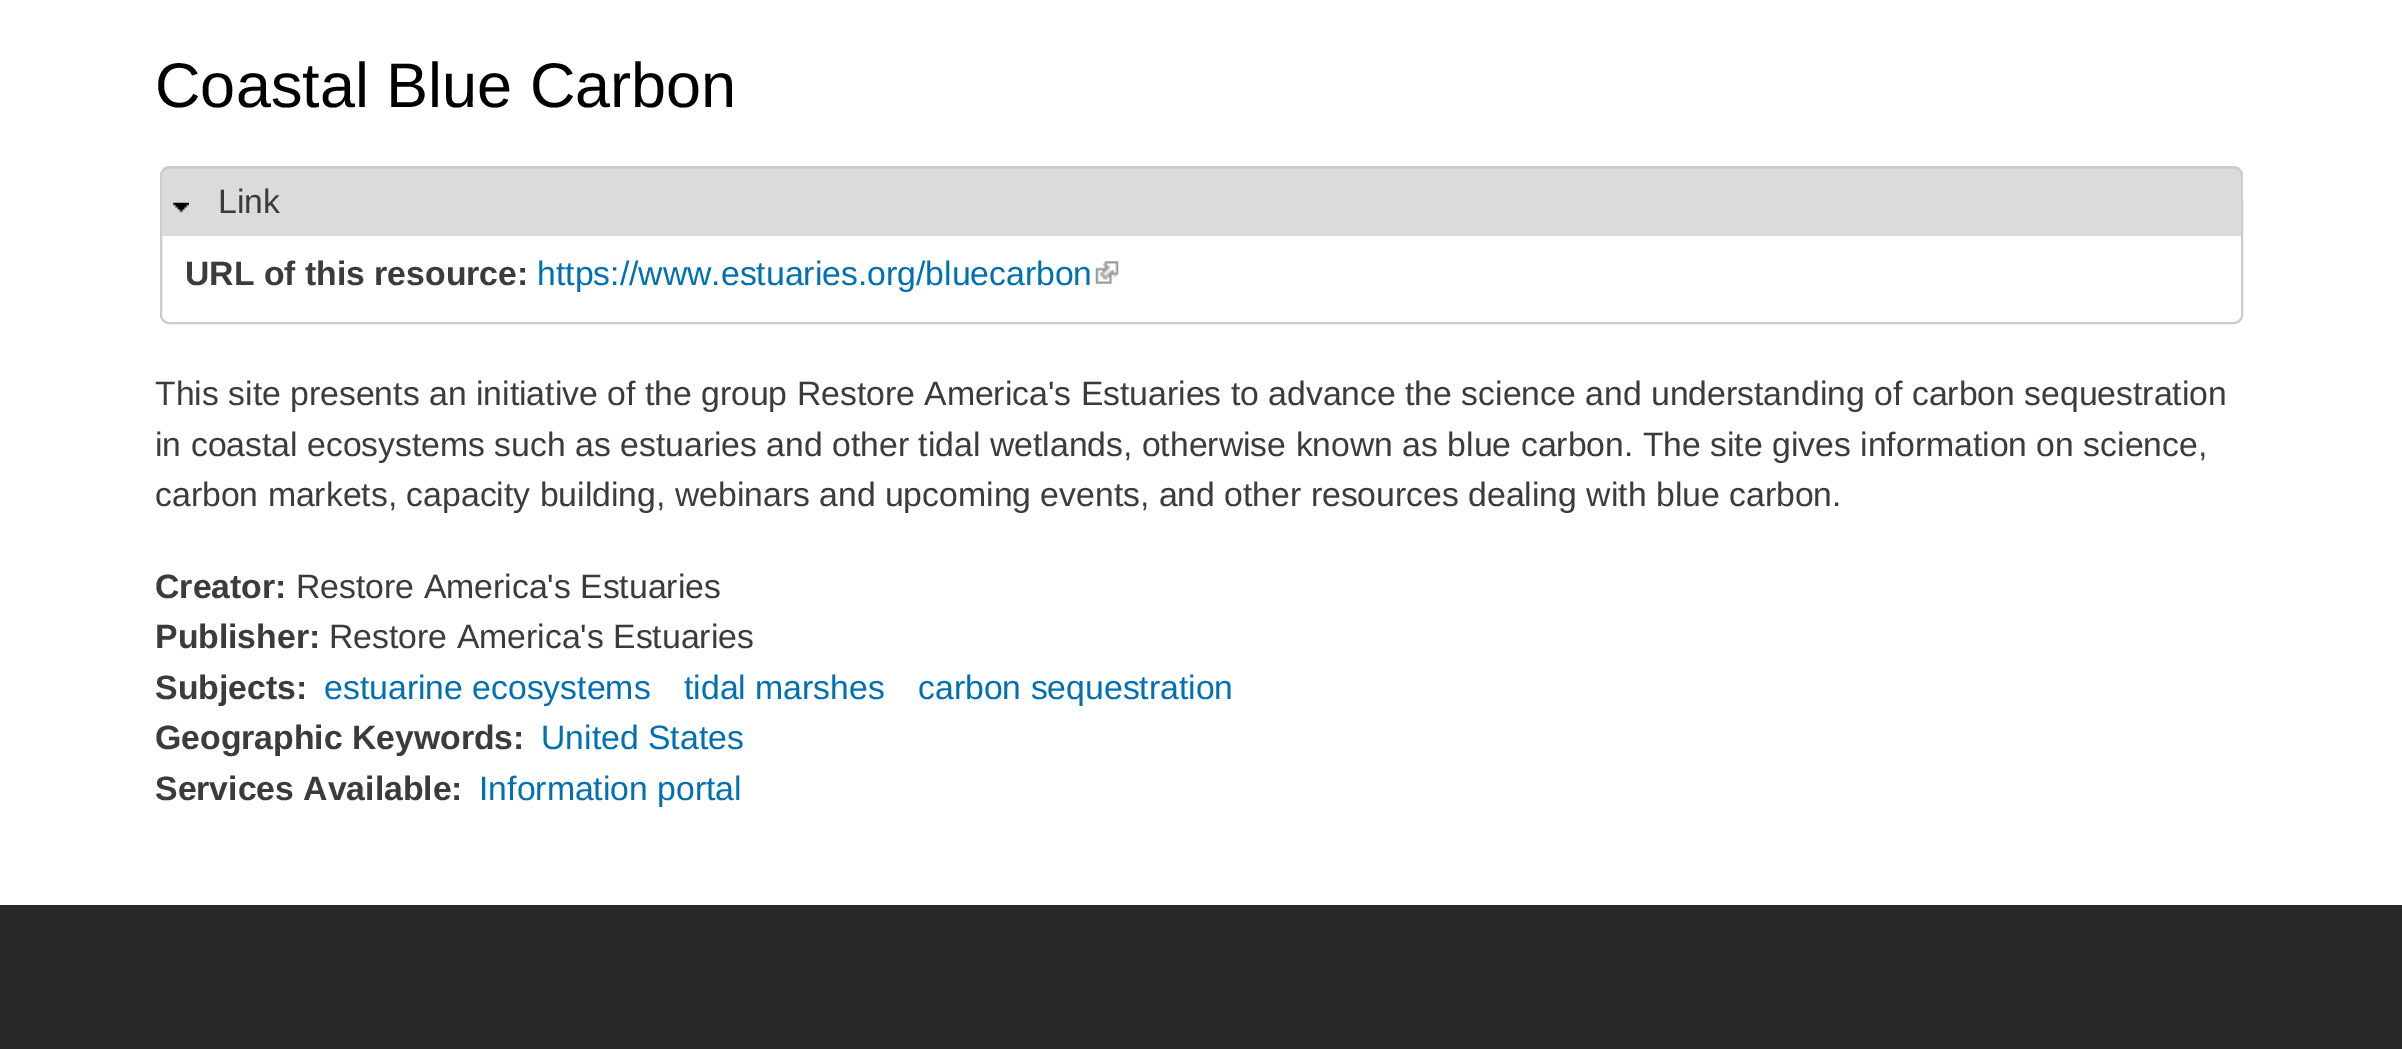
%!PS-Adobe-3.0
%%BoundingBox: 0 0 2402 1049
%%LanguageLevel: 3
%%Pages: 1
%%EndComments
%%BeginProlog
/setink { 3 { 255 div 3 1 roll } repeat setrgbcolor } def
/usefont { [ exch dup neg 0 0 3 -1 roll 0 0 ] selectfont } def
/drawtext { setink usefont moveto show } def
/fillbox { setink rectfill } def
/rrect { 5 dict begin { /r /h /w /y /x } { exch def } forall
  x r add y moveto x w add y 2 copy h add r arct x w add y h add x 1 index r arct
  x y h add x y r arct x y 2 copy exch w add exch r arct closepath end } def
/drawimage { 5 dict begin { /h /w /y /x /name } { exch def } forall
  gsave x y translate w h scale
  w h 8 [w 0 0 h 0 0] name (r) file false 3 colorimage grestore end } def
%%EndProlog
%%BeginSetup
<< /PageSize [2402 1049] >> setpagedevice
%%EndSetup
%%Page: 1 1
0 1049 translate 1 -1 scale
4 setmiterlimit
0 0 2402 1049 255 255 255 fillbox
(Coastal Blue Carbon) 155 107 /LiberationSans-Regular 63 0 0 0 drawtext
204 204 204 setink
2 setlinewidth
161 192 2081 131 8 rrect stroke
219 219 219 setink
169 167 moveto 2234 167 lineto 2239 167 2243 171 2243 176 curveto 2243 236 lineto 160 236 lineto 160 176 lineto 160 171 164 167 169 167 curveto closepath fill
204 204 204 setink
169 166 moveto 2234 166 lineto 2239 166 2243 171 2243 176 curveto 2243 236 lineto 160 236 lineto 160 176 lineto 160 171 164 166 169 166 curveto closepath 169 169 moveto 2234 169 lineto 2238 169 2241 172 2241 176 curveto 2241 236 lineto 162 236 lineto 162 176 lineto 162 172 165 169 169 169 curveto closepath eofill
(assets/img1.rgb) 173 202 16 11 drawimage
(Link) 218 213 /LiberationSans-Regular 33.75 59 59 59 drawtext
(URL of this resource:) 185 285 /LiberationSans-Bold 33.75 59 59 59 drawtext
(https://www.estuaries.org/bluecarbon) 537 285 /LiberationSans-Regular 33.75 0 112 179 drawtext
(assets/img2.rgb) 1095 261 24 23 drawimage
(This site presents an initiative of the group Restore America's Estuaries to advance the science and understanding of carbon sequestration) 155 405 /LiberationSans-Regular 33.75 59 59 59 drawtext
(in coastal ecosystems such as estuaries and other tidal wetlands, otherwise known as blue carbon. The site gives information on science,) 155 456 /LiberationSans-Regular 33.75 59 59 59 drawtext
(carbon markets, capacity building, webinars and upcoming events, and other resources dealing with blue carbon.) 155 506 /LiberationSans-Regular 33.75 59 59 59 drawtext
(Creator:) 155 598 /LiberationSans-Bold 33.75 59 59 59 drawtext
(Restore America's Estuaries) 296 598 /LiberationSans-Regular 33.75 59 59 59 drawtext
(Publisher:) 155 648 /LiberationSans-Bold 33.75 59 59 59 drawtext
(Restore America's Estuaries) 329 648 /LiberationSans-Regular 33.75 59 59 59 drawtext
(Subjects:) 155 699 /LiberationSans-Bold 33.75 59 59 59 drawtext
(estuarine ecosystems) 324 699 /LiberationSans-Regular 33.75 0 112 179 drawtext
(tidal marshes) 684 699 /LiberationSans-Regular 33.75 0 112 179 drawtext
(carbon sequestration) 918 699 /LiberationSans-Regular 33.75 0 112 179 drawtext
(Geographic Keywords:) 155 749 /LiberationSans-Bold 33.75 59 59 59 drawtext
(United States) 541 749 /LiberationSans-Regular 33.75 0 112 179 drawtext
(Services Available:) 155 800 /LiberationSans-Bold 33.75 59 59 59 drawtext
(Information portal) 479 800 /LiberationSans-Regular 33.75 0 112 179 drawtext
0 905 2402 144 41 41 41 fillbox
showpage
%%EOF
